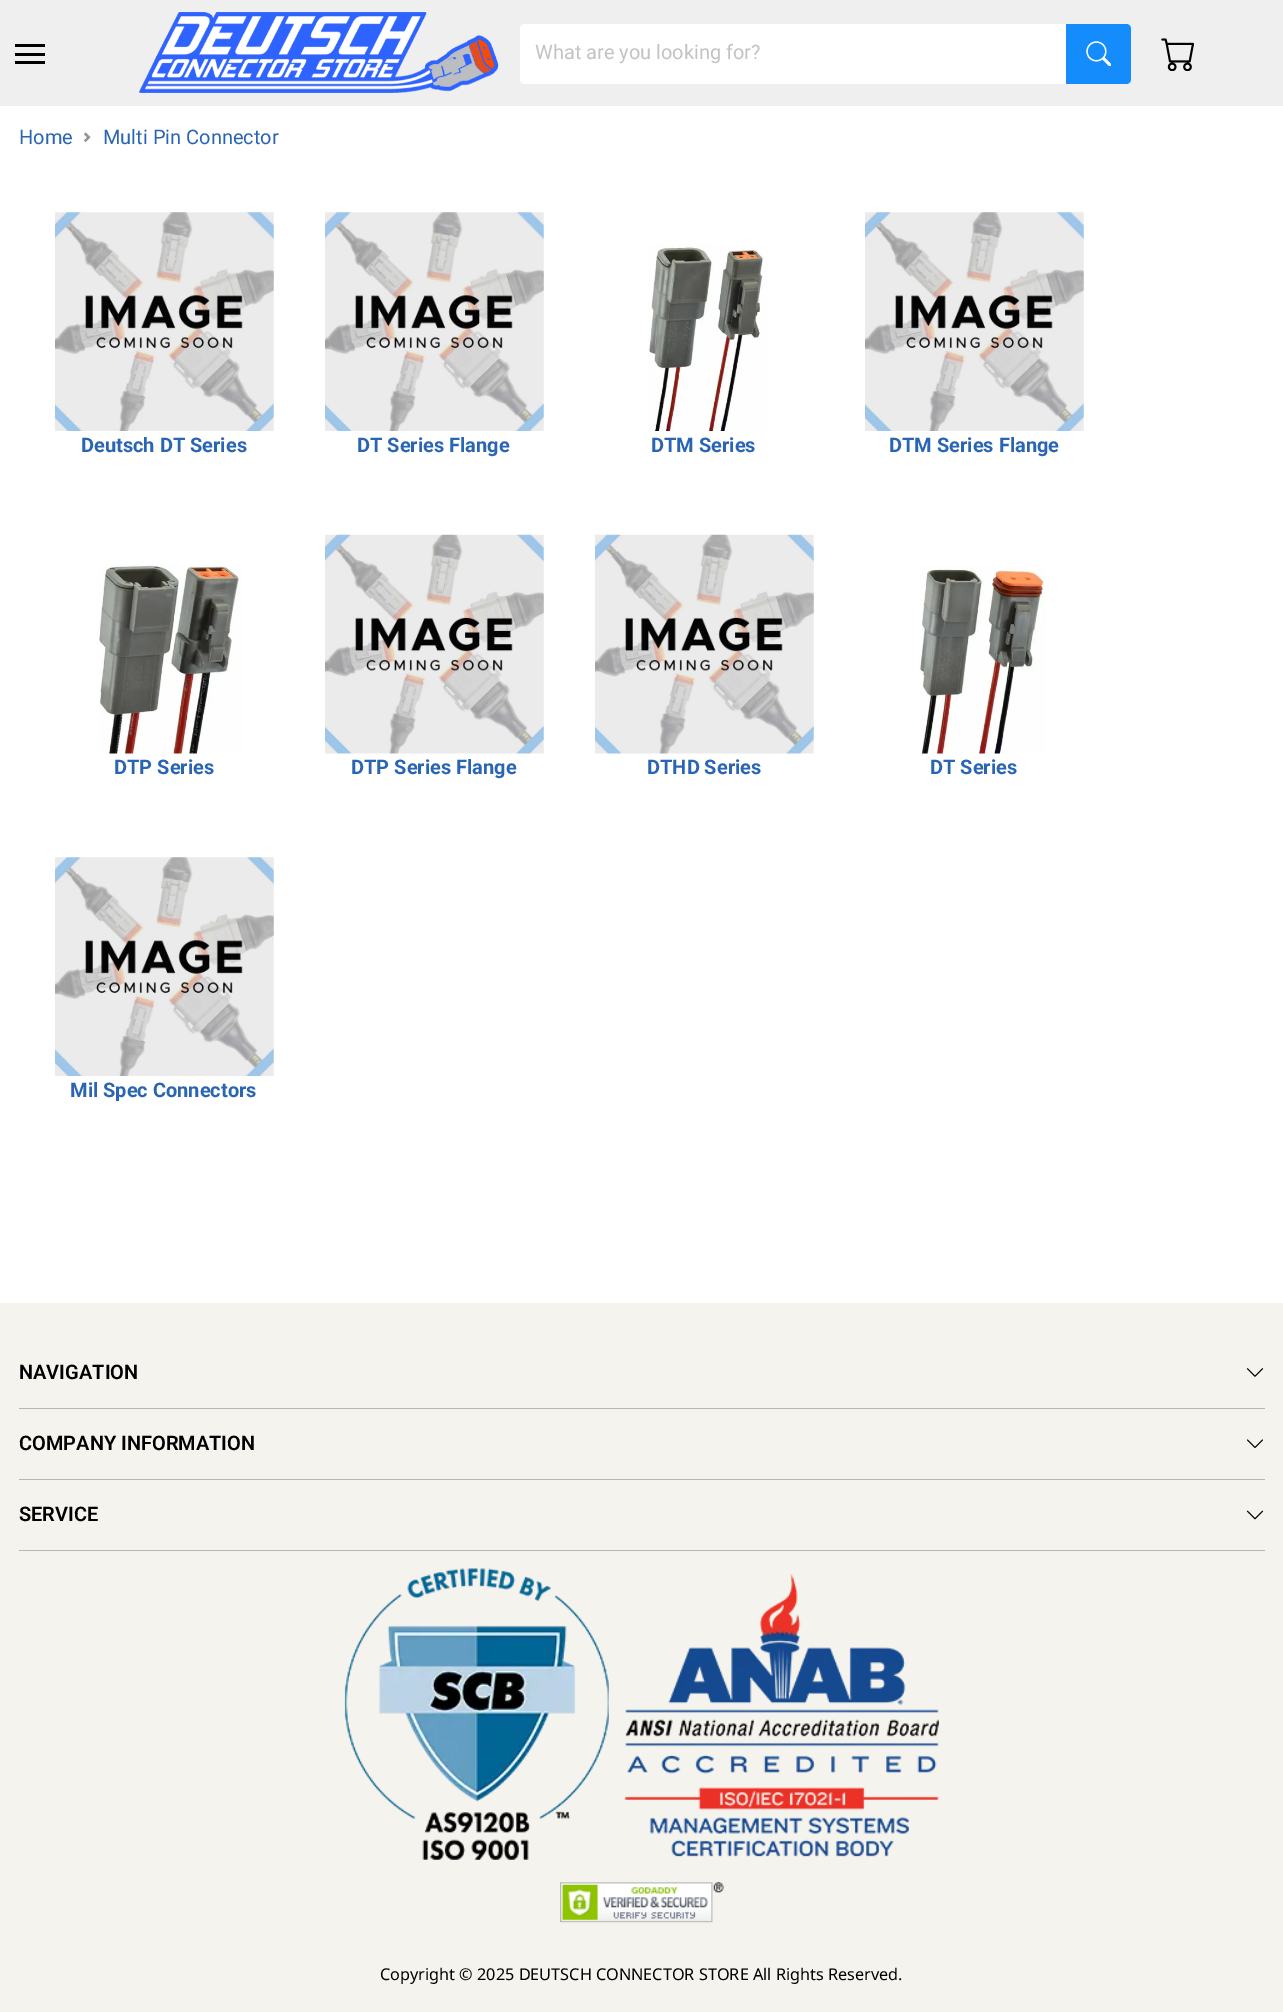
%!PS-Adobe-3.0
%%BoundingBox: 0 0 1283 2012
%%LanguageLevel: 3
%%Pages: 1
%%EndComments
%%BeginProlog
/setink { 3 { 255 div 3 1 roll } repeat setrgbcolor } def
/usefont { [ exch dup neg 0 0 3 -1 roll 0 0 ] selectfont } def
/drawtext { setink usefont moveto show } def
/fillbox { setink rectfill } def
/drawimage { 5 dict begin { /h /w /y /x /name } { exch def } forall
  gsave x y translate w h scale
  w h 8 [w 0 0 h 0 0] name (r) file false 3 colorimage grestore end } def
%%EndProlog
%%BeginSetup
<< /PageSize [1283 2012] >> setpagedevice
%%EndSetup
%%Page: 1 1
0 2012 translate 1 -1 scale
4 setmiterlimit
0 0 1283 2012 255 255 255 fillbox
0 0 1283 106 239 239 239 fillbox
15 44 30 3 0 0 0 fillbox
15 53 30 3 0 0 0 fillbox
15 61 30 3 0 0 0 fillbox
(assets/img1.rgb) 139 12 360 81 drawimage
255 255 255 setink
525 24 moveto 1068 24 lineto 1068 84 lineto 525 84 lineto 522 84 520 82 520 79 curveto 520 29 lineto 520 26 522 24 525 24 curveto closepath fill
(What are you looking for?) 535 59 /Roboto-Regular 20 196 195 195 drawtext
21 140 251 setink
1066 24 moveto 1126 24 lineto 1129 24 1131 26 1131 29 curveto 1131 79 lineto 1131 82 1129 84 1126 84 curveto 1066 84 lineto closepath fill
(assets/img2.rgb) 1086 41 25 25 drawimage
(assets/img3.rgb) 1161 38 33 33 drawimage
(Home) 19 144 /Roboto-Regular 20 42 101 179 drawtext
(assets/img4.rgb) 83 132 8 11 drawimage
(Multi Pin Connector) 103 144 /Roboto-Regular 20 42 101 179 drawtext
(assets/img5.rgb) 55 212 219 219 drawimage
(Deutsch DT Series) 81 452 /Roboto-Bold 20 42 101 179 drawtext
(assets/img5.rgb) 325 212 219 219 drawimage
(DT Series Flange) 357 452 /Roboto-Bold 20 42 101 179 drawtext
(assets/img6.rgb) 648 244 120 187 drawimage
(DTM Series) 651 452 /Roboto-Bold 20 42 101 179 drawtext
(assets/img5.rgb) 865 212 219 219 drawimage
(DTM Series Flange) 889 452 /Roboto-Bold 20 42 101 179 drawtext
(assets/img7.rgb) 99 564 143 190 drawimage
(DTP Series) 114 774 /Roboto-Bold 20 42 101 179 drawtext
(assets/img8.rgb) 325 534 219 220 drawimage
(DTP Series Flange) 351 774 /Roboto-Bold 20 42 101 179 drawtext
(assets/img9.rgb) 595 534 219 220 drawimage
(DTHD Series) 647 774 /Roboto-Bold 20 42 101 179 drawtext
(assets/img10.rgb) 920 565 126 189 drawimage
(DT Series) 930 774 /Roboto-Bold 20 42 101 179 drawtext
(assets/img5.rgb) 55 857 219 219 drawimage
(Mil Spec Connectors) 70 1097 /Roboto-Bold 20 42 101 179 drawtext
0 1303 1283 709 245 243 237 fillbox
(NAVIGATION) 19 1379 /Roboto-SemiBold 20 0 0 0 drawtext
(assets/img11.rgb) 1246 1368 18 9 drawimage
19 1408 1246 1 184 182 178 fillbox
(COMPANY INFORMATION) 19 1450 /Roboto-SemiBold 20 0 0 0 drawtext
(assets/img12.rgb) 1247 1439 16 9 drawimage
19 1479 1246 1 184 182 178 fillbox
(SERVICE) 19 1521 /Roboto-SemiBold 20 0 0 0 drawtext
(assets/img13.rgb) 1246 1510 18 10 drawimage
19 1550 1246 1 184 182 178 fillbox
(assets/img14.rgb) 344 1568 595 292 drawimage
(assets/img15.rgb) 560 1882 164 41 drawimage
(Copyright © 2025 DEUTSCH CONNECTOR STORE All Rights Reserved.) 380 1980 /NotoSans-Regular 16.25 0 0 0 drawtext
showpage
%%EOF
